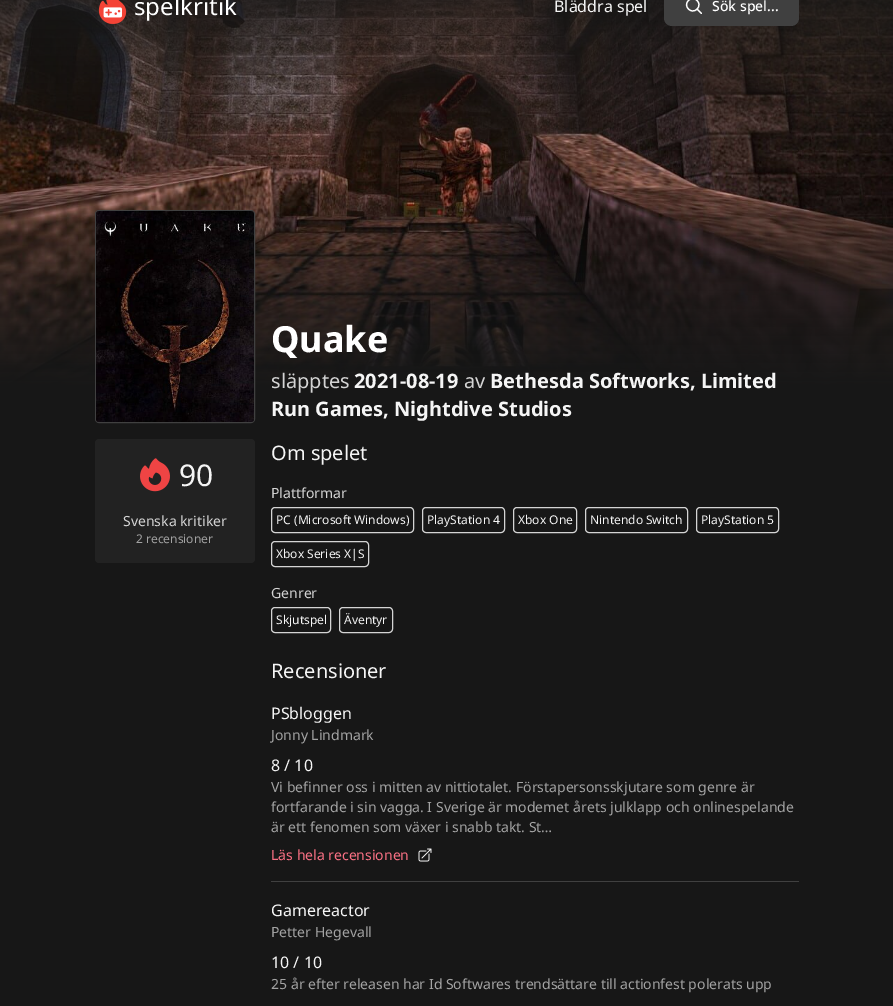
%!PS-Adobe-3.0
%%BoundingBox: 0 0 893 1006
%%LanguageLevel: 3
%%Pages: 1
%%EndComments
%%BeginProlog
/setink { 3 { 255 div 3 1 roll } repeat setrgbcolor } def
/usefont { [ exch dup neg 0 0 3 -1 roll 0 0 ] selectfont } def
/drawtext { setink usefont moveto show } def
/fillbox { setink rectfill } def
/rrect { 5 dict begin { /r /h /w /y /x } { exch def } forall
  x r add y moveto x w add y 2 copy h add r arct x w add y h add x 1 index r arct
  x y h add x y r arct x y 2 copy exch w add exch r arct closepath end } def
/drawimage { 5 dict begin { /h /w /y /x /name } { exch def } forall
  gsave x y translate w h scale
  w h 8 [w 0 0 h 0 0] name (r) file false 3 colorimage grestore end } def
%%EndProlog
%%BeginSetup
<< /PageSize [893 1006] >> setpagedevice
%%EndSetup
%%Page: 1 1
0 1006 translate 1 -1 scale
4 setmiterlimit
0 0 893 1006 23 23 23 fillbox
(assets/img2.rgb) 0 0 893 386 drawimage
(assets/img1.rgb) 98 0 29 24 drawimage
(spelkritik) 134 15 /NotoSans-Regular 24 255 255 255 drawtext
(Bläddra spel) 554 12 /NotoSans-Regular 16 245 245 245 drawtext
64 64 64 setink
664 -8 135 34 8 rrect fill
255 255 255 setink
1.2 setlinewidth
1 setlinecap
1 setlinejoin
701.5 13.5 moveto 697 9 lineto 697 9 moveto 703 3.5 694 -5.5 688.5 0.5 curveto 682.5 6 691.5 15 697 9 curveto closepath stroke
(Sök spel...) 712 11 /NotoSans-Medium 14 255 255 255 drawtext
64 64 64 setink
1 setlinewidth
0 setlinecap
0 setlinejoin
95.5 210.5 159 212 3.5 rrect stroke
(assets/img3.rgb) 96 211 158 211 drawimage
(Quake) 271 352 /NotoSans-Bold 36 255 255 255 drawtext
(släpptes) 271 388 /NotoSans-Regular 20 212 212 212 drawtext
(2021-08-19) 354 388 /NotoSans-Bold 20 245 245 245 drawtext
(av) 464 388 /NotoSans-Regular 20 212 212 212 drawtext
(Bethesda Softworks, Limited) 490 388 /NotoSans-Bold 20 245 245 245 drawtext
(Run Games, Nightdive Studios) 271 416 /NotoSans-Bold 20 245 245 245 drawtext
34 34 34 setink
95 439 160 124 4 rrect fill
(assets/img4.rgb) 140 458 30 34 drawimage
(90) 179 486 /NotoSans-Regular 30 245 245 245 drawtext
(Svenska kritiker) 123 526 /NotoSans-Regular 14 212 212 212 drawtext
(2 recensioner) 136 543 /NotoSans-Regular 12 163 163 163 drawtext
(Om spelet) 271 460 /NotoSans-Regular 20 245 245 245 drawtext
(Plattformar) 271 498 /NotoSans-Regular 14 212 212 212 drawtext
271.5 507.5 142 25 3.5 rrect stroke
(PC \(Microsoft Windows\)) 276 524 /NotoSans-Regular 12 245 245 245 drawtext
212 212 212 setink
422.5 507.5 82 25 3.5 rrect stroke
(PlayStation 4) 427 524 /NotoSans-Regular 12 245 245 245 drawtext
212 212 212 setink
513.5 507.5 63 25 3.5 rrect stroke
(Xbox One) 518 524 /NotoSans-Regular 12 245 245 245 drawtext
212 212 212 setink
585.5 507.5 102 25 3.5 rrect stroke
(Nintendo Switch) 590 524 /NotoSans-Regular 12 245 245 245 drawtext
212 212 212 setink
696.5 507.5 82 25 3.5 rrect stroke
(PlayStation 5) 701 524 /NotoSans-Regular 12 245 245 245 drawtext
212 212 212 setink
271.5 541.5 97 25 3.5 rrect stroke
(Xbox Series X|S) 276 558 /NotoSans-Regular 12 245 245 245 drawtext
(Genrer) 271 598 /NotoSans-Regular 14 212 212 212 drawtext
271.5 607.5 59 25 3.5 rrect stroke
(Skjutspel) 276 624 /NotoSans-Regular 12 245 245 245 drawtext
212 212 212 setink
339.5 607.5 53 25 3.5 rrect stroke
(Äventyr) 344 624 /NotoSans-Regular 12 245 245 245 drawtext
(Recensioner) 271 678 /NotoSans-Regular 20 245 245 245 drawtext
(PSbloggen) 271 719 /NotoSans-Regular 16 245 245 245 drawtext
(Jonny Lindmark) 271 740 /NotoSans-Regular 14 163 163 163 drawtext
(8 / 10) 271 771 /NotoSans-Regular 16 245 245 245 drawtext
(Vi befinner oss i mitten av nittiotalet. Förstapersonsskjutare som genre är) 271 792 /NotoSans-Regular 14 163 163 163 drawtext
(fortfarande i sin vagga. I Sverige är modemet årets julklapp och onlinespelande) 271 812 /NotoSans-Regular 14 163 163 163 drawtext
(är ett fenomen som växer i snabb takt. St…) 271 832 /NotoSans-Regular 14 163 163 163 drawtext
(Läs hela recensionen) 271 860 /NotoSans-Regular 14 251 113 133 drawtext
(assets/img5.rgb) 418 848 14 14 drawimage
271 881 528 1 64 64 64 fillbox
(Gamereactor) 271 916 /NotoSans-Regular 16 245 245 245 drawtext
(Petter Hegevall) 271 937 /NotoSans-Regular 14 163 163 163 drawtext
(10 / 10) 271 968 /NotoSans-Regular 16 245 245 245 drawtext
(25 år efter releasen har Id Softwares trendsättare till actionfest polerats upp) 271 989 /NotoSans-Regular 14 163 163 163 drawtext
showpage
%%EOF
